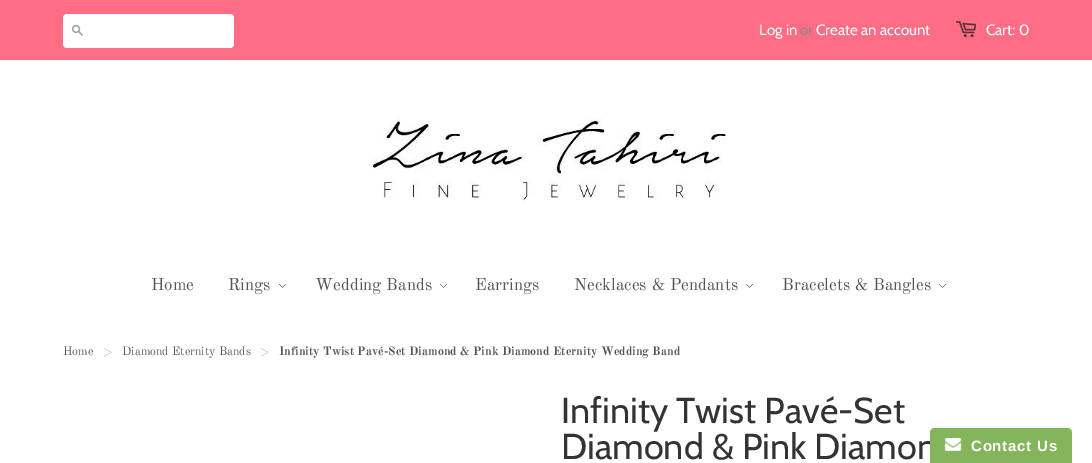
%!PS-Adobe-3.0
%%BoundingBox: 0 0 1092 463
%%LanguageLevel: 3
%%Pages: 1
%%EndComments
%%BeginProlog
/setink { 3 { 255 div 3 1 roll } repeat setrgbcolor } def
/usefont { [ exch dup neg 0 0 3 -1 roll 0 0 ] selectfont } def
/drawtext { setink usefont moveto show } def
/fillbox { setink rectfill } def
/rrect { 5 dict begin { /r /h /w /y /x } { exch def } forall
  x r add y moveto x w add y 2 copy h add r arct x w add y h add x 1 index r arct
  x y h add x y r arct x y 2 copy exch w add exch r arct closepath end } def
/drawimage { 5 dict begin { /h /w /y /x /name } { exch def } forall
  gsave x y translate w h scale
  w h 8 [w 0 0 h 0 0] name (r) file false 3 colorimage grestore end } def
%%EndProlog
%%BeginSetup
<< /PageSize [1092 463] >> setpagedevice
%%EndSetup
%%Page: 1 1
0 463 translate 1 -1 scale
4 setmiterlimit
0 0 1092 463 255 255 255 fillbox
0 0 1092 60 255 109 132 fillbox
255 255 255 setink
63 14 171 34 4 rrect fill
(assets/img1.rgb) 72 25 11 11 drawimage
(Log in) 759 35 /Cabin-Regular 15 255 255 255 drawtext
(or) 800 35 /Cabin-Regular 15 136 136 136 drawtext
(Create an account) 816 35 /Cabin-Regular 15 255 255 255 drawtext
(assets/img2.rgb) 956 21 20 16 drawimage
(Cart: 0) 986 35 /Cabin-Regular 15 255 255 255 drawtext
(assets/img3.rgb) 372 117 355 86 drawimage
(Home) 151 290 /OldStandardTT-Regular 17 85 85 85 drawtext
(assets/img4.rgb) 279 284 7 4 drawimage
(Rings) 228 290 /OldStandardTT-Regular 17 85 85 85 drawtext
(assets/img4.rgb) 440 284 7 4 drawimage
(Wedding Bands) 315 290 /OldStandardTT-Regular 17 85 85 85 drawtext
(Earrings) 475 290 /OldStandardTT-Regular 17 85 85 85 drawtext
(assets/img4.rgb) 746 284 7 4 drawimage
(Necklaces & Pendants) 574 290 /OldStandardTT-Regular 17 85 85 85 drawtext
(assets/img4.rgb) 939 284 7 4 drawimage
(Bracelets & Bangles) 782 290 /OldStandardTT-Regular 17 85 85 85 drawtext
(Home) 63 355 /OldStandardTT-Regular 12 85 85 85 drawtext
(>) 103 355 /OldStandardTT-Regular 10 170 170 170 drawtext
(Diamond Eternity Bands) 122 355 /OldStandardTT-Regular 12 85 85 85 drawtext
(>) 260 355 /OldStandardTT-Regular 10 170 170 170 drawtext
(Infinity Twist Pavé-Set Diamond & Pink Diamond Eternity Wedding Band) 279 355 /OldStandardTT-Bold 12 85 85 85 drawtext
(Infinity Twist Pavé-Set) 561 423 /Cabin-Regular 36 51 51 51 drawtext
(Diamond & Pink Diamon) 561 459 /Cabin-Regular 36 51 51 51 drawtext
132 180 91 setink
935 428 moveto 1067 428 lineto 1070 428 1072 430 1072 433 curveto 1072 463 lineto 930 463 lineto 930 433 lineto 930 430 932 428 935 428 curveto closepath fill
(assets/img5.rgb) 944 438 18 13 drawimage
/LiberationSans-Bold 15 usefont
255 255 255 setink
971 451 moveto 0.75 0 (Contact Us) ashow
showpage
%%EOF
